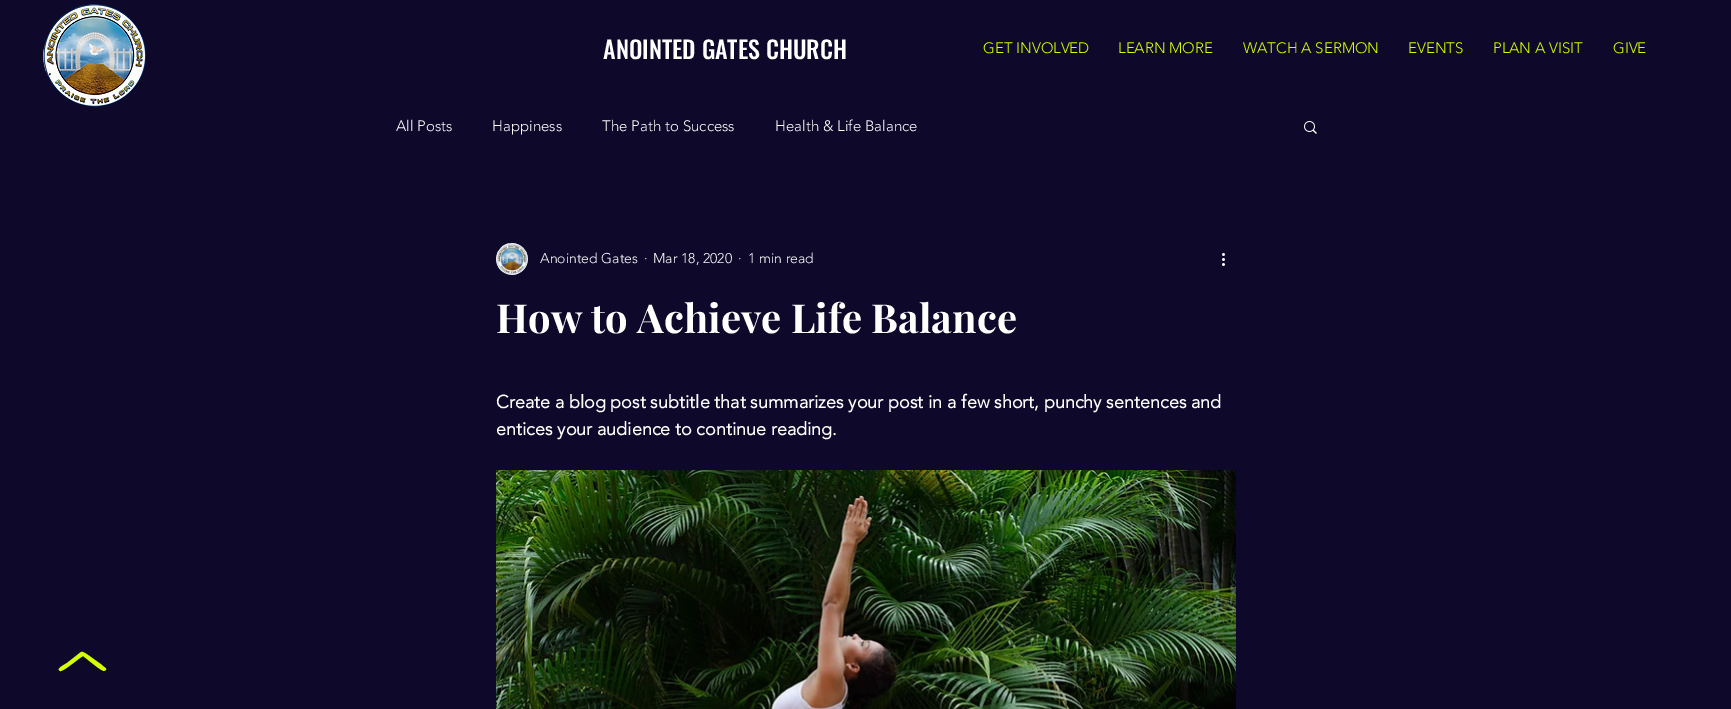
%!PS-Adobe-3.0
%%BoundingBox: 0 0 1731 709
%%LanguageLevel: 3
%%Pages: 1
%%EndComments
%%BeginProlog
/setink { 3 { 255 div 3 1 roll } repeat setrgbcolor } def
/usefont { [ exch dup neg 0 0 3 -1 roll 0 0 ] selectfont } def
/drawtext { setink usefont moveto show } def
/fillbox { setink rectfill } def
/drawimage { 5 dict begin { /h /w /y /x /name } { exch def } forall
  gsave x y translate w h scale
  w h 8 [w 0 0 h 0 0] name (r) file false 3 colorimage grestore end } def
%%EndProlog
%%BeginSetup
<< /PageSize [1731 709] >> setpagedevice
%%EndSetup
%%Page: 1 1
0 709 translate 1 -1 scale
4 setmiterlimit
0 0 1731 709 14 9 43 fillbox
(assets/img1.rgb) 43 4 103 103 drawimage
(ANOINTED GATES CHURCH) 603 59 /Oswald-Medium 24 255 255 255 drawtext
(GET INVOLVED) 983 53 /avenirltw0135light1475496-Light 15 214 255 0 drawtext
(LEARN MORE) 1118 53 /avenirltw0135light1475496-Light 15 214 255 0 drawtext
(WATCH A SERMON) 1243 53 /avenirltw0135light1475496-Light 15 214 255 0 drawtext
(EVENTS) 1408 53 /avenirltw0135light1475496-Light 15 214 255 0 drawtext
(PLAN A VISIT) 1493 53 /avenirltw0135light1475496-Light 15 214 255 0 drawtext
(GIVE) 1613 53 /avenirltw0135light1475496-Light 15 214 255 0 drawtext
(All Posts) 396 131 /avenirltw0135light1475496-Light 15 255 255 255 drawtext
(Happiness) 492 131 /avenirltw0135light1475496-Light 15 255 255 255 drawtext
(The Path to Success) 602 131 /avenirltw0135light1475496-Light 15 255 255 255 drawtext
(Health & Life Balance) 775 131 /avenirltw0135light1475496-Light 15 255 255 255 drawtext
(assets/img2.rgb) 1304 121 13 13 drawimage
(assets/img3.rgb) 496 243 32 32 drawimage
(Anointed Gates) 540 263 /avenirltw0135light1475496-Light 14 255 255 255 drawtext
(·) 644 263 /avenirltw0135light1475496-Light 14 255 255 255 drawtext
(Mar 18, 2020) 653 263 /avenirltw0135light1475496-Light 14 255 255 255 drawtext
(·) 738 263 /avenirltw0135light1475496-Light 14 255 255 255 drawtext
(1 min read) 748 263 /avenirltw0135light1475496-Light 14 255 255 255 drawtext
(assets/img4.rgb) 1222 253 3 13 drawimage
(How to Achieve Life Balance) 496 333 /PlayfairDisplay-Bold 40 255 255 255 drawtext
(Create a blog post subtitle that summarizes your post in a few short, punchy sentences and) 496 408 /avenirltw0135light1475496-Bold 18 255 255 255 drawtext
(entices your audience to continue reading.) 496 435 /avenirltw0135light1475496-Bold 18 255 255 255 drawtext
(assets/img5.rgb) 496 470 740 239 drawimage
214 255 0 setink
104 671 moveto 101 671 86 658 83 656 curveto 79 658 63 672 60 671 curveto 56 669 62 666 67 663 curveto 81 652 lineto 83 651 86 654 88 655 curveto 102 665 lineto 102 666 107 668 106 670 curveto closepath fill
showpage
%%EOF
